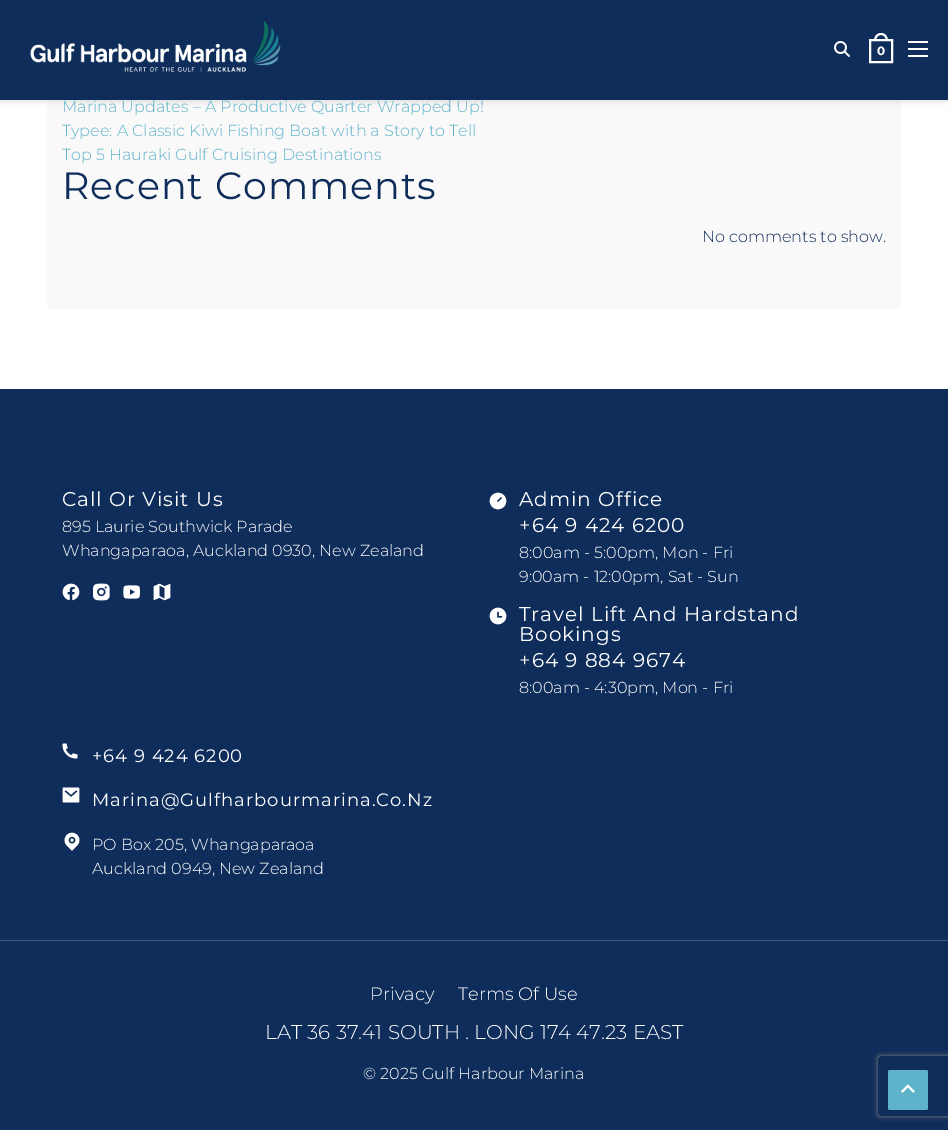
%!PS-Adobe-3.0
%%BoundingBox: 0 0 948 1130
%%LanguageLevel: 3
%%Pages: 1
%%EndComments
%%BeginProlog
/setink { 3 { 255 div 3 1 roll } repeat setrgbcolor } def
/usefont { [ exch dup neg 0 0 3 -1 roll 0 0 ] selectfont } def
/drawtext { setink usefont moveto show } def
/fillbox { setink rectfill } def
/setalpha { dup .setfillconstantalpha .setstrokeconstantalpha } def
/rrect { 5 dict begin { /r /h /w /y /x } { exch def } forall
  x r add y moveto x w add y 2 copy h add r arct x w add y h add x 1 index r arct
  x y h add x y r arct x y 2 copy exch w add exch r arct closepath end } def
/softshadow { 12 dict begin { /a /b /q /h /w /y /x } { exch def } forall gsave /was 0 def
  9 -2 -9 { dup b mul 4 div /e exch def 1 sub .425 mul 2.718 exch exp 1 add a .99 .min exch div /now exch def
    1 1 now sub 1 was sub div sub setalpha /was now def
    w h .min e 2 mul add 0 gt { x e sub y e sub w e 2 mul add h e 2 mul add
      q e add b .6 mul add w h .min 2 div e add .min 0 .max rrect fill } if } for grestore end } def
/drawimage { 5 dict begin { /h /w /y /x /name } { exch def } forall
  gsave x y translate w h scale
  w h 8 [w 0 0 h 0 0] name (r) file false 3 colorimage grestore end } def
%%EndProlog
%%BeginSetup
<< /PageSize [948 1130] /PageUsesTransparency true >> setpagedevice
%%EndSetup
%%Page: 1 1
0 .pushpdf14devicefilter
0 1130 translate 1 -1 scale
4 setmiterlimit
0 0 948 1130 255 255 255 fillbox
47 100 854 209 250 249 249 fillbox
0 0 0 setink
0 2 948 100 0 2.5 0.1 softshadow
0 0 948 100 15 45 90 fillbox
(assets/img1.rgb) 30 20 251 52 drawimage
(assets/img2.rgb) 834 41 16 16 drawimage
255 255 255 setink
2 setlinewidth
870 40 22 22 rectstroke
881 33 moveto 885.5 33 888 37 888 41 curveto 874 41 lineto 874 37 876.5 33 881 33 curveto closepath 881 35 moveto 884.5 35 886 38 886 41 curveto 876 41 lineto 876 38 877.5 35 881 35 curveto closepath eofill
(0) 877 55 /Montserrat-Bold 12 255 255 255 drawtext
908 48 20 2 1 rrect fill
908 41 20 2 1 rrect fill
908 55 20 2 1 rrect fill
(Marina Updates – A Productive Quarter Wrapped Up!) 62 112 /Montserrat-Light 16 94 179 202 drawtext
(Typee: A Classic Kiwi Fishing Boat with a Story to Tell) 62 136 /Montserrat-Light 16 94 179 202 drawtext
(Top 5 Hauraki Gulf Cruising Destinations) 62 160 /Montserrat-Light 16 94 179 202 drawtext
/Montserrat-Regular 38 usefont
15 45 90 setink
62 199 moveto 1 0 (Recent Comments) ashow
(No comments to show.) 702 242 /Montserrat-Light 16 15 45 90 drawtext
0 389 948 551 15 45 90 fillbox
/Montserrat-Regular 20 usefont
255 255 255 setink
62 506 moveto 1 0 (Call Or Visit Us) ashow
(895 Laurie Southwick Parade) 62 532 /Montserrat-Light 16 255 255 255 drawtext
(Whangaparaoa, Auckland 0930, New Zealand) 62 556 /Montserrat-Light 16 255 255 255 drawtext
(assets/img3.rgb) 62 583 18 18 drawimage
(assets/img4.rgb) 93 583 17 18 drawimage
(assets/img5.rgb) 123 585 17 14 drawimage
(assets/img6.rgb) 153 583 18 18 drawimage
(assets/img7.rgb) 489 492 18 18 drawimage
/Montserrat-Regular 20 usefont
519 506 moveto 1 0 (Admin Office) ashow
519 532 moveto 1 0 (+64 9 424 6200) ashow
(8:00am - 5:00pm, Mon - Fri) 519 558 /Montserrat-Light 16 255 255 255 drawtext
(9:00am - 12:00pm, Sat - Sun) 519 582 /Montserrat-Light 16 255 255 255 drawtext
(assets/img8.rgb) 489 607 18 18 drawimage
/Montserrat-Regular 20 usefont
519 621 moveto 1 0 (Travel Lift And Hardstand) ashow
519 641 moveto 1 0 (Bookings) ashow
519 667 moveto 1 0 (+64 9 884 9674) ashow
(8:00am - 4:30pm, Mon - Fri) 519 693 /Montserrat-Light 16 255 255 255 drawtext
(assets/img9.rgb) 62 743 16 16 drawimage
/Montserrat-Regular 18 usefont
92 762 moveto 1 0 (+64 9 424 6200) ashow
(assets/img10.rgb) 62 787 18 16 drawimage
92 806 moveto 1 0 (Marina@Gulfharbourmarina.Co.Nz) ashow
(assets/img11.rgb) 64 832 16 19 drawimage
(PO Box 205, Whangaparaoa) 92 850 /Montserrat-Light 16 255 255 255 drawtext
(Auckland 0949, New Zealand) 92 874 /Montserrat-Light 16 255 255 255 drawtext
0 941 948 189 15 45 90 fillbox
0 940 948 1 63 87 123 fillbox
(Privacy) 370 1000 /Montserrat-Light 18 255 255 255 drawtext
(Terms Of Use) 458 1000 /Montserrat-Light 18 255 255 255 drawtext
(LAT 36 37.41 SOUTH . LONG 174 47.23 EAST) 265 1039 /Montserrat-Light 20 255 255 255 drawtext
(© 2025 Gulf Harbour Marina) 363 1079 /Montserrat-Light 16 255 255 255 drawtext
gsave
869 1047 moveto 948 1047 lineto 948 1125 lineto 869 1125 lineto closepath 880 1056 moveto 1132 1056 lineto 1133 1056 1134 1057 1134 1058 curveto 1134 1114 lineto 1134 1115 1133 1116 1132 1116 curveto 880 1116 lineto 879 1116 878 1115 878 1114 curveto 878 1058 lineto 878 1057 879 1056 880 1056 curveto closepath eoclip newpath
128 128 128 setink
878 1056 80 60 2 2.5 1 softshadow
grestore
94 179 202 setink
888 1070 40 40 2 rrect fill
(assets/img12.rgb) 901 1084 14 9 drawimage
.poppdf14devicefilter showpage
%%EOF
